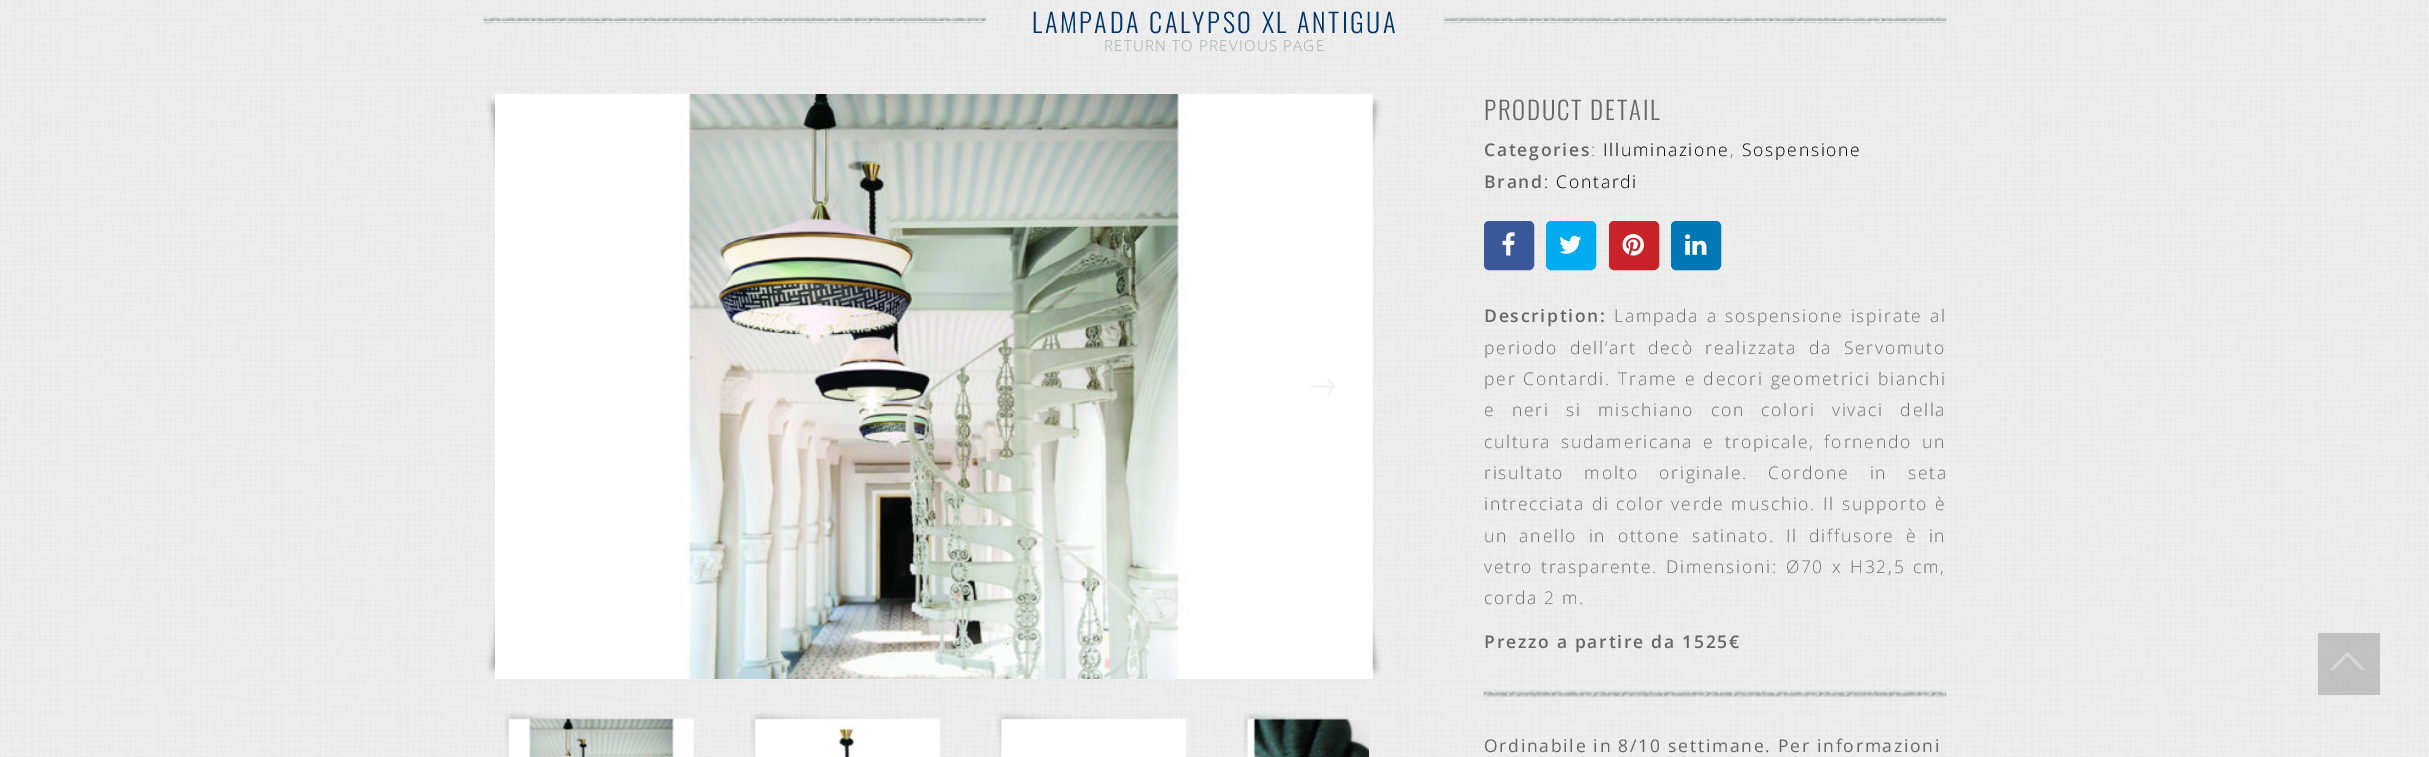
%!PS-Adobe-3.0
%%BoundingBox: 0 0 2429 757
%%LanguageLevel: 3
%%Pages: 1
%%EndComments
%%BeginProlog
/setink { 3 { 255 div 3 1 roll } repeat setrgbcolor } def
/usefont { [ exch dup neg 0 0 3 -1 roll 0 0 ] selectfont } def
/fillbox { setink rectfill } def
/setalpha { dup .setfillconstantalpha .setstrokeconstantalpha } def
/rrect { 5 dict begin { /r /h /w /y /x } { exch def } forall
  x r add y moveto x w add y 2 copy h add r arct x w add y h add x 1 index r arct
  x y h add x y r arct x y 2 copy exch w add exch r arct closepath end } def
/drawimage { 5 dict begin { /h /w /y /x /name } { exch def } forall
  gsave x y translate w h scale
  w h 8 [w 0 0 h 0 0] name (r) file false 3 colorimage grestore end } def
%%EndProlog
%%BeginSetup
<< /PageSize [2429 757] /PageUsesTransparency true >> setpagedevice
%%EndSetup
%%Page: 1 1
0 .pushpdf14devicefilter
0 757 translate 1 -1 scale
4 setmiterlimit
0 0 2429 757 255 255 255 fillbox
(assets/img1.rgb) 0 0 2429 757 drawimage
(assets/img2.rgb) 483 16 1464 8 drawimage
484 21 1462 1 235 235 235 fillbox
(assets/img3.rgb) 986 8 458 26 drawimage
/Oswald-Light 26.25 usefont
0 51 102 setink
1032 33 moveto 2.6 0 (LAMPADA CALYPSO XL ANTIGUA) ashow
/OpenSans-Light 15 usefont
167 169 169 setink
1104 51 moveto 1.25 0 (RETURN TO PREVIOUS PAGE) ashow
(assets/img4.rgb) 487 98 894 71 drawimage
(assets/img5.rgb) 487 603 894 72 drawimage
(assets/img6.rgb) 495 94 878 585 drawimage
0.56 setalpha
1372 94 1 585 255 255 255 fillbox
1 setalpha
(assets/img7.rgb) 1310 378 25 18 drawimage
(assets/img8.rgb) 504 713 151 44 drawimage
(assets/img9.rgb) 508 718 186 39 drawimage
(assets/img10.rgb) 750 713 152 44 drawimage
(assets/img11.rgb) 754 718 187 39 drawimage
(assets/img12.rgb) 996 713 152 44 drawimage
(assets/img13.rgb) 1000 718 187 39 drawimage
(assets/img14.rgb) 1243 713 126 44 drawimage
(assets/img15.rgb) 1247 718 122 39 drawimage
/Oswald-Light 25 usefont
102 102 102 setink
1484 120 moveto 1.75 0 (PRODUCT DETAIL) ashow
/OpenSans-SemiBold 17.5 usefont
1484 156 moveto 1.75 0 (Categories) ashow
/OpenSans-Light 17.5 usefont
111 111 111 setink
1591 156 moveto 1.75 0 (:) ashow
0 0 0 setink
1603 156 moveto 1.75 0 (Illuminazione) ashow
111 111 111 setink
1730 156 moveto 1.75 0 (,) ashow
0 0 0 setink
1742 156 moveto 1.75 0 (Sospensione) ashow
/OpenSans-SemiBold 17.5 usefont
102 102 102 setink
1484 188 moveto 1.75 0 (Brand) ashow
/OpenSans-Light 17.5 usefont
0 0 0 setink
1544 188 moveto 1.75 0 (: Contardi) ashow
58 87 154 setink
1484.5 221.5 49 48 4.5 rrect gsave fill grestore
stroke
(assets/img16.rgb) 1502 232 13 24 drawimage
0 171 240 setink
1546.5 221.5 49 48 4.5 rrect gsave fill grestore
stroke
(assets/img17.rgb) 1559 235 23 19 drawimage
201 34 40 setink
1609.5 221.5 49 48 4.5 rrect gsave fill grestore
stroke
(assets/img18.rgb) 1622 234 22 22 drawimage
0 119 181 setink
1671.5 221.5 49 48 4.5 rrect gsave fill grestore
stroke
(assets/img19.rgb) 1685 234 22 21 drawimage
(assets/img20.rgb) 1483 690 464 8 drawimage
/OpenSans-SemiBold 17.5 usefont
102 102 102 setink
1484 322 moveto 1.75 0 (Description:) ashow
/OpenSans-Light 17.5 usefont
111 111 111 setink
1614 322 moveto 1 0 32 1.75 0 (Lampada a sospensione ispirate al) awidthshow
1484 354 moveto 5.5 0 32 1.75 0 (periodo dell’art decò realizzata da Servomuto) awidthshow
1484 385 moveto 1 0 32 1.75 0 (per Contardi. Trame e decori geometrici bianchi) awidthshow
1484 416 moveto 10.25 0 32 1.75 0 (e neri si mischiano con colori vivaci della) awidthshow
1484 448 moveto 3.75 0 32 1.75 0 (cultura sudamericana e tropicale, fornendo un) awidthshow
1484 479 moveto 14 0 32 1.75 0 (risultato molto originale. Cordone in seta) awidthshow
1484 510 moveto 0.5 0 32 1.75 0 (intrecciata di color verde muschio. Il supporto è) awidthshow
1484 542 moveto 5 0 32 1.75 0 (un anello in ottone satinato. Il diffusore è in) awidthshow
1484 573 moveto 1.5 0 32 1.75 0 (vetro trasparente. Dimensioni: Ø70 x H32,5 cm,) awidthshow
1484 604 moveto 1.75 0 (corda 2 m.) ashow
/OpenSans-SemiBold 17.5 usefont
102 102 102 setink
1484 648 moveto 1.75 0 (Prezzo a partire da 1525€) ashow
/OpenSans-Regular 17.5 usefont
1484 752 moveto 1.75 0 (Ordinabile in 8/10 settimane. Per informazioni) ashow
0.3 setalpha
2318 633 62 62 255 255 255 fillbox
0.2 setalpha
2318 633 62 62 0 0 0 fillbox
1 setalpha
255 255 255 setink
2333 670 moveto 2347.5 655.5 lineto 2362 670 lineto 2362.5 670 lineto 2347.5 655 lineto 2332.5 670 lineto closepath 2330.5 670 moveto 2347.5 653 lineto 2364.5 670 lineto 2365 670 lineto 2347.5 652.5 lineto 2330 670 lineto closepath fill
.poppdf14devicefilter showpage
%%EOF
